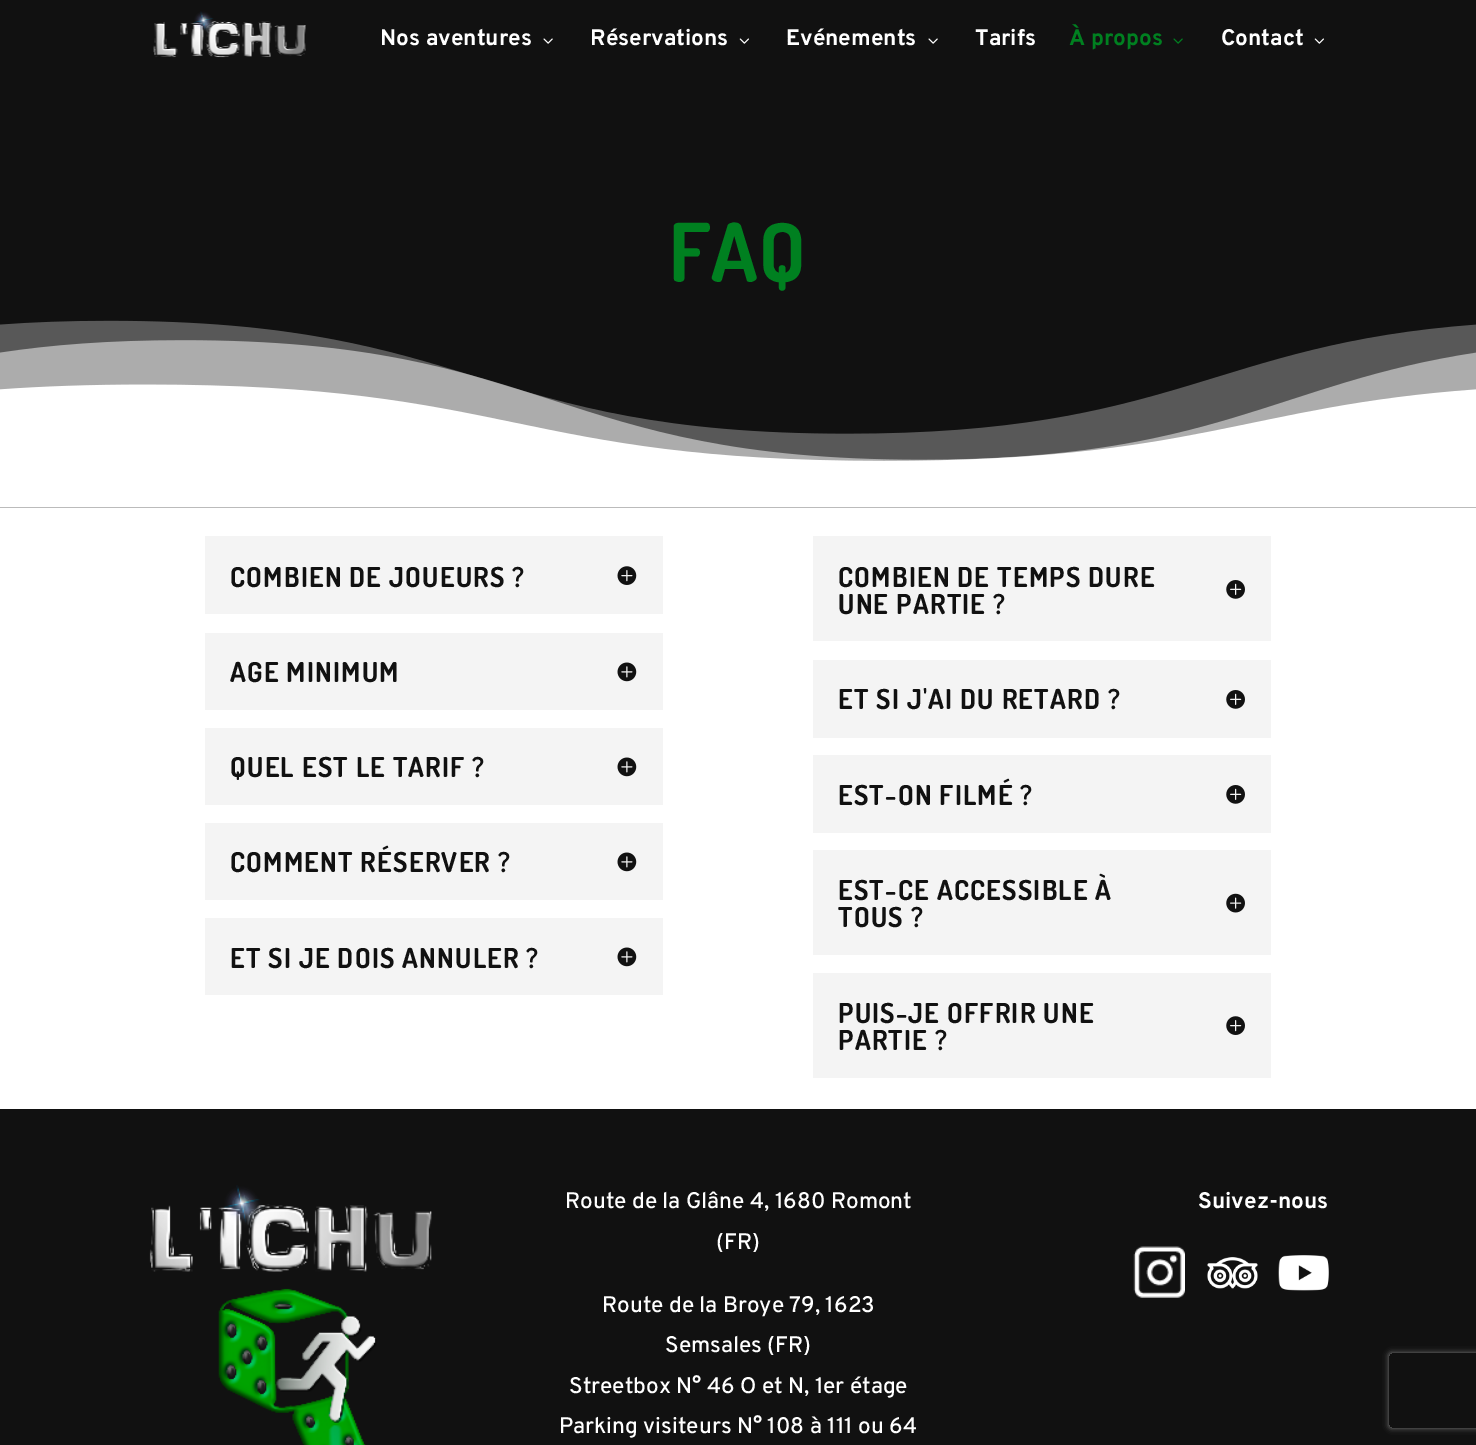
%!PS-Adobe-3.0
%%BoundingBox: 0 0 1476 1445
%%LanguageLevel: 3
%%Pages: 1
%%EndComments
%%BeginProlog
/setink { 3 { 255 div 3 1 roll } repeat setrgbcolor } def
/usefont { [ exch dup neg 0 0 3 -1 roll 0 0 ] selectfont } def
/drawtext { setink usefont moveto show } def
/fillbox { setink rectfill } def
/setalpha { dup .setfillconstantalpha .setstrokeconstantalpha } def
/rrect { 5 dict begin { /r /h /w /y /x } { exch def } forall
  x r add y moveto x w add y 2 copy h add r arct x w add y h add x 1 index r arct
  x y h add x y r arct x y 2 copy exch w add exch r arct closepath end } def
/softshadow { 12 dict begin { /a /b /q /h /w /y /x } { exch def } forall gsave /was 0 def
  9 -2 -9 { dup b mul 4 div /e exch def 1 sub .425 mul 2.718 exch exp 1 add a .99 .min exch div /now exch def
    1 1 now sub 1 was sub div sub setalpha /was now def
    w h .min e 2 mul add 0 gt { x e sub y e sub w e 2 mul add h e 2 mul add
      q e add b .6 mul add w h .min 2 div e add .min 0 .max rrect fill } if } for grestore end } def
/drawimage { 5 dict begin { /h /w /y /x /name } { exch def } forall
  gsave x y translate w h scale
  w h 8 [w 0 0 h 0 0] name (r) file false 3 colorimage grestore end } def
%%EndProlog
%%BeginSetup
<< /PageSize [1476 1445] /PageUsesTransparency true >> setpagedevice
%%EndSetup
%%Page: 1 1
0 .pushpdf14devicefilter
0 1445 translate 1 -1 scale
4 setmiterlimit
0 0 1476 1445 255 255 255 fillbox
0 0 1476 508 17 17 17 fillbox
(assets/img1.rgb) 153 11 153 47 drawimage
(Nos aventures) 380 45 /Overpass-Bold 22.5 255 255 255 drawtext
(assets/img2.rgb) 543 38 10 6 drawimage
(Réservations) 590 45 /Overpass-Bold 22.5 255 255 255 drawtext
(assets/img3.rgb) 739 38 10 6 drawimage
(Evénements) 786 45 /Overpass-Bold 22.5 255 255 255 drawtext
(assets/img2.rgb) 928 38 10 6 drawimage
(Tarifs) 975 45 /Overpass-Bold 22.5 255 255 255 drawtext
(À propos) 1069 45 /Overpass-Bold 22.5 0 128 32 drawtext
(assets/img4.rgb) 1173 38 10 6 drawimage
(Contact) 1221 45 /Overpass-Bold 22.5 255 255 255 drawtext
(assets/img3.rgb) 1314 38 10 6 drawimage
/Dosis-Bold 81 usefont
0 128 32 setink
669 282 moveto 1.25 0 (FAQ) ashow
(assets/img5.rgb) 0 320 1476 188 drawimage
205 536 458 78 244 244 244 fillbox
/Dosis-Bold 27.5 usefont
17 17 17 setink
230 587 moveto 1.25 0 (COMBIEN DE JOUEURS ?) ashow
(assets/img6.rgb) 617 566 20 19 drawimage
205 633 458 77 244 244 244 fillbox
17 17 17 setink
230 682 moveto 1.25 0 (AGE MINIMUM) ashow
(assets/img7.rgb) 617 662 20 20 drawimage
205 728 458 77 244 244 244 fillbox
17 17 17 setink
230 777 moveto 1.25 0 (QUEL EST LE TARIF ?) ashow
(assets/img7.rgb) 617 757 20 20 drawimage
205 823 458 77 244 244 244 fillbox
17 17 17 setink
230 872 moveto 1.25 0 (COMMENT RÉSERVER ?) ashow
(assets/img7.rgb) 617 852 20 20 drawimage
205 918 458 77 244 244 244 fillbox
17 17 17 setink
230 968 moveto 1.25 0 (ET SI JE DOIS ANNULER ?) ashow
(assets/img7.rgb) 617 947 20 20 drawimage
813 536 458 105 244 244 244 fillbox
17 17 17 setink
838 587 moveto 1.25 0 (COMBIEN DE TEMPS DURE) ashow
(assets/img8.rgb) 1226 580 19 19 drawimage
838 614 moveto 1.25 0 (UNE PARTIE ?) ashow
813 660 458 78 244 244 244 fillbox
17 17 17 setink
838 709 moveto 1.25 0 (ET SI J'AI DU RETARD ?) ashow
(assets/img8.rgb) 1226 690 19 19 drawimage
813 755 458 78 244 244 244 fillbox
17 17 17 setink
838 805 moveto 1.25 0 (EST-ON FILMÉ ?) ashow
(assets/img8.rgb) 1226 785 19 19 drawimage
813 850 458 105 244 244 244 fillbox
17 17 17 setink
838 900 moveto 1.25 0 (EST-CE ACCESSIBLE À) ashow
(assets/img9.rgb) 1226 893 19 20 drawimage
838 927 moveto 1.25 0 (TOUS ?) ashow
813 973 458 105 244 244 244 fillbox
17 17 17 setink
838 1023 moveto 1.25 0 (PUIS-JE OFFRIR UNE) ashow
(assets/img10.rgb) 1226 1016 19 19 drawimage
838 1050 moveto 1.25 0 (PARTIE ?) ashow
0 1109 1476 336 17 17 17 fillbox
(assets/img11.rgb) 149 1185 283 260 drawimage
(Route de la Glâne 4, 1680 Romont) 565 1208 /Overpass-Medium 22.5 255 255 255 drawtext
(\(FR\)) 716 1249 /Overpass-Medium 22.5 255 255 255 drawtext
(Route de la Broye 79, 1623) 602 1312 /Overpass-Medium 22.5 255 255 255 drawtext
(Semsales \(FR\)) 665 1352 /Overpass-Medium 22.5 255 255 255 drawtext
(Streetbox N° 46 O et N, 1er étage) 569 1393 /Overpass-Medium 22.5 255 255 255 drawtext
(Parking visiteurs N° 108 à 111 ou 64) 559 1433 /Overpass-Medium 22.5 255 255 255 drawtext
(Suivez-nous) 1198 1208 /Overpass-Bold 22.5 255 255 255 drawtext
(assets/img12.rgb) 1133 1246 52 52 drawimage
(assets/img13.rgb) 1207 1257 51 32 drawimage
(assets/img14.rgb) 1278 1255 51 36 drawimage
gsave
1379 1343 moveto 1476 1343 lineto 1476 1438 lineto 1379 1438 lineto closepath 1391.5 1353 moveto 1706.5 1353 lineto 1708 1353 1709 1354 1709 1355.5 curveto 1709 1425.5 lineto 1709 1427 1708 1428 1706.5 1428 curveto 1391.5 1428 lineto 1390 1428 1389 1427 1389 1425.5 curveto 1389 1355.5 lineto 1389 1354 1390 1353 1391.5 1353 curveto closepath eoclip newpath
128 128 128 setink
1389 1353 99 75 2.5 3 1 softshadow
grestore
.poppdf14devicefilter showpage
%%EOF
